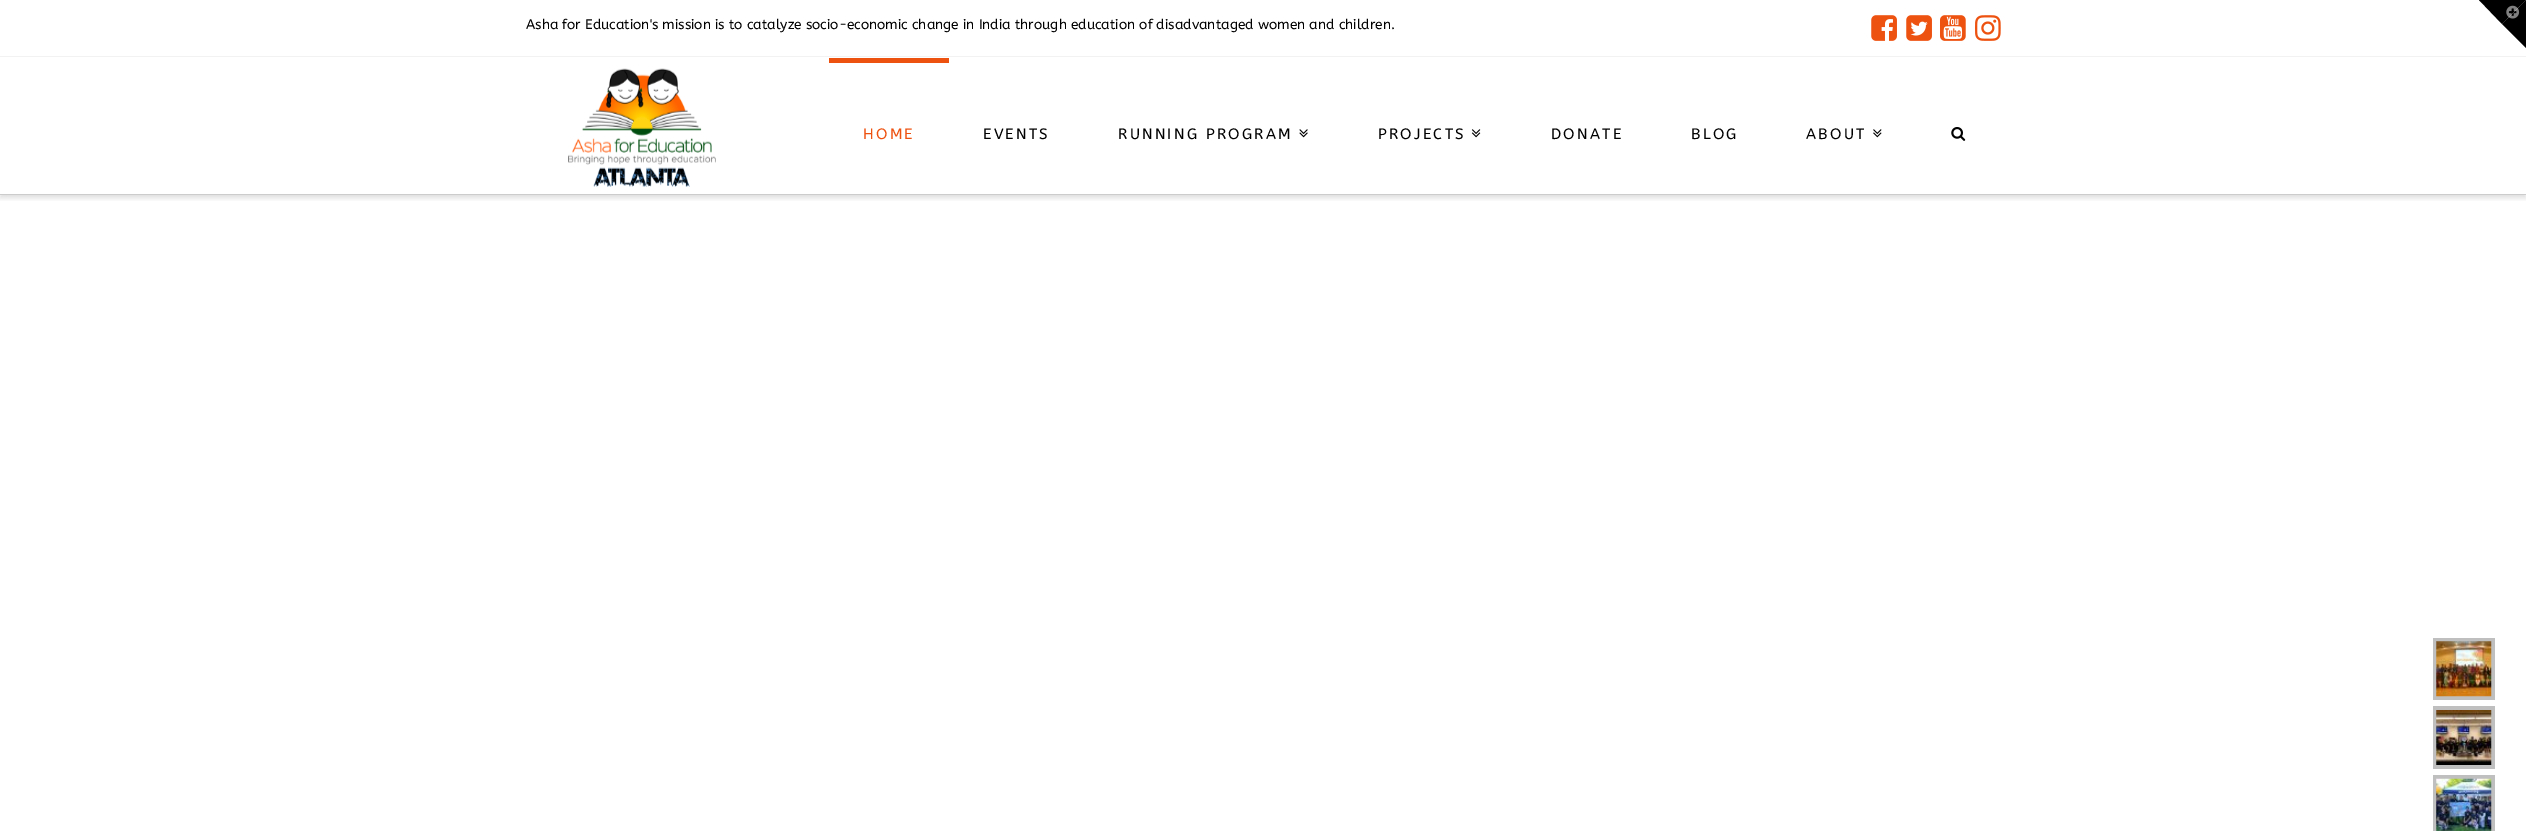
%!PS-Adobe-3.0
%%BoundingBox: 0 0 2526 831
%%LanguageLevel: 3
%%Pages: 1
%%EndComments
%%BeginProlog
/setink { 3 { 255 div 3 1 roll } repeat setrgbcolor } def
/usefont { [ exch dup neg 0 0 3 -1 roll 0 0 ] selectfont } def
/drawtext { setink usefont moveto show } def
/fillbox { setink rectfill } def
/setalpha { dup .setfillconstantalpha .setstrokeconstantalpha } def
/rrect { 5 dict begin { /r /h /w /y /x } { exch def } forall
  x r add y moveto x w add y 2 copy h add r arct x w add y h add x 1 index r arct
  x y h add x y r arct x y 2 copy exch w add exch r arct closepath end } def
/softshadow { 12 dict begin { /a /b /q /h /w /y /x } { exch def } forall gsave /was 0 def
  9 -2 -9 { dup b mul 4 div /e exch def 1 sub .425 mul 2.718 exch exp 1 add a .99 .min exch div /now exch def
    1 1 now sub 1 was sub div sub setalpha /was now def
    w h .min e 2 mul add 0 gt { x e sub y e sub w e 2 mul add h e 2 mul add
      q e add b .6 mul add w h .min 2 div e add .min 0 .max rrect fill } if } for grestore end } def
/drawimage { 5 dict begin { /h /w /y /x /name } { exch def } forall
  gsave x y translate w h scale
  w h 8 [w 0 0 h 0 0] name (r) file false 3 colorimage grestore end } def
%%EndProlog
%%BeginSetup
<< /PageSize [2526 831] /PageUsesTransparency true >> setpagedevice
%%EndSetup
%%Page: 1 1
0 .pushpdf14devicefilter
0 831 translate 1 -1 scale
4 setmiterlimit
0 0 2526 831 255 255 255 fillbox
gsave
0 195 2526 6 rectclip
0 0 0 setink
0 60 2526 138 0 3 0.13 softshadow
grestore
0 56 2526 1 242 242 242 fillbox
(Asha for Education's mission is to catalyze socio-economic change in India through education of disadvantaged women and children.) 526 29 /ABeeZee-Regular 13.75 0 0 0 drawtext
(assets/img1.rgb) 1871 15 26 26 drawimage
(assets/img2.rgb) 1906 15 26 26 drawimage
(assets/img3.rgb) 1940 15 26 26 drawimage
(assets/img4.rgb) 1975 15 26 26 drawimage
0 194 2526 1 204 204 204 fillbox
(assets/img5.rgb) 568 68 148 119 drawimage
829 58 120 5 237 82 16 fillbox
/ABeeZee-Regular 15 usefont
863 139 moveto 2.25 0 (HOME) ashow
0 0 0 setink
983 139 moveto 2.25 0 (EVENTS) ashow
1118 139 moveto 2.25 0 (RUNNING PROGRAM) ashow
(assets/img6.rgb) 1299 129 9 9 drawimage
1378 139 moveto 2.25 0 (PROJECTS) ashow
(assets/img7.rgb) 1471 129 10 9 drawimage
1551 139 moveto 2.25 0 (DONATE) ashow
1691 139 moveto 2.25 0 (BLOG) ashow
1806 139 moveto 2.25 0 (ABOUT) ashow
(assets/img8.rgb) 1873 129 9 9 drawimage
(assets/img9.rgb) 1951 127 15 14 drawimage
2433 638 62 62 191 191 191 fillbox
(assets/img10.rgb) 2436 641 56 56 drawimage
2433 706 62 63 191 191 191 fillbox
(assets/img11.rgb) 2436 710 56 55 drawimage
2433 775 62 56 191 191 191 fillbox
(assets/img12.rgb) 2436 778 56 53 drawimage
0 0 0 setink
2479 0 moveto 2526 0 lineto 2502 24 lineto closepath fill
2526 0 moveto 2526 48 lineto 2502 24 lineto closepath fill
(assets/img13.rgb) 2506 5 14 14 drawimage
.poppdf14devicefilter showpage
%%EOF
